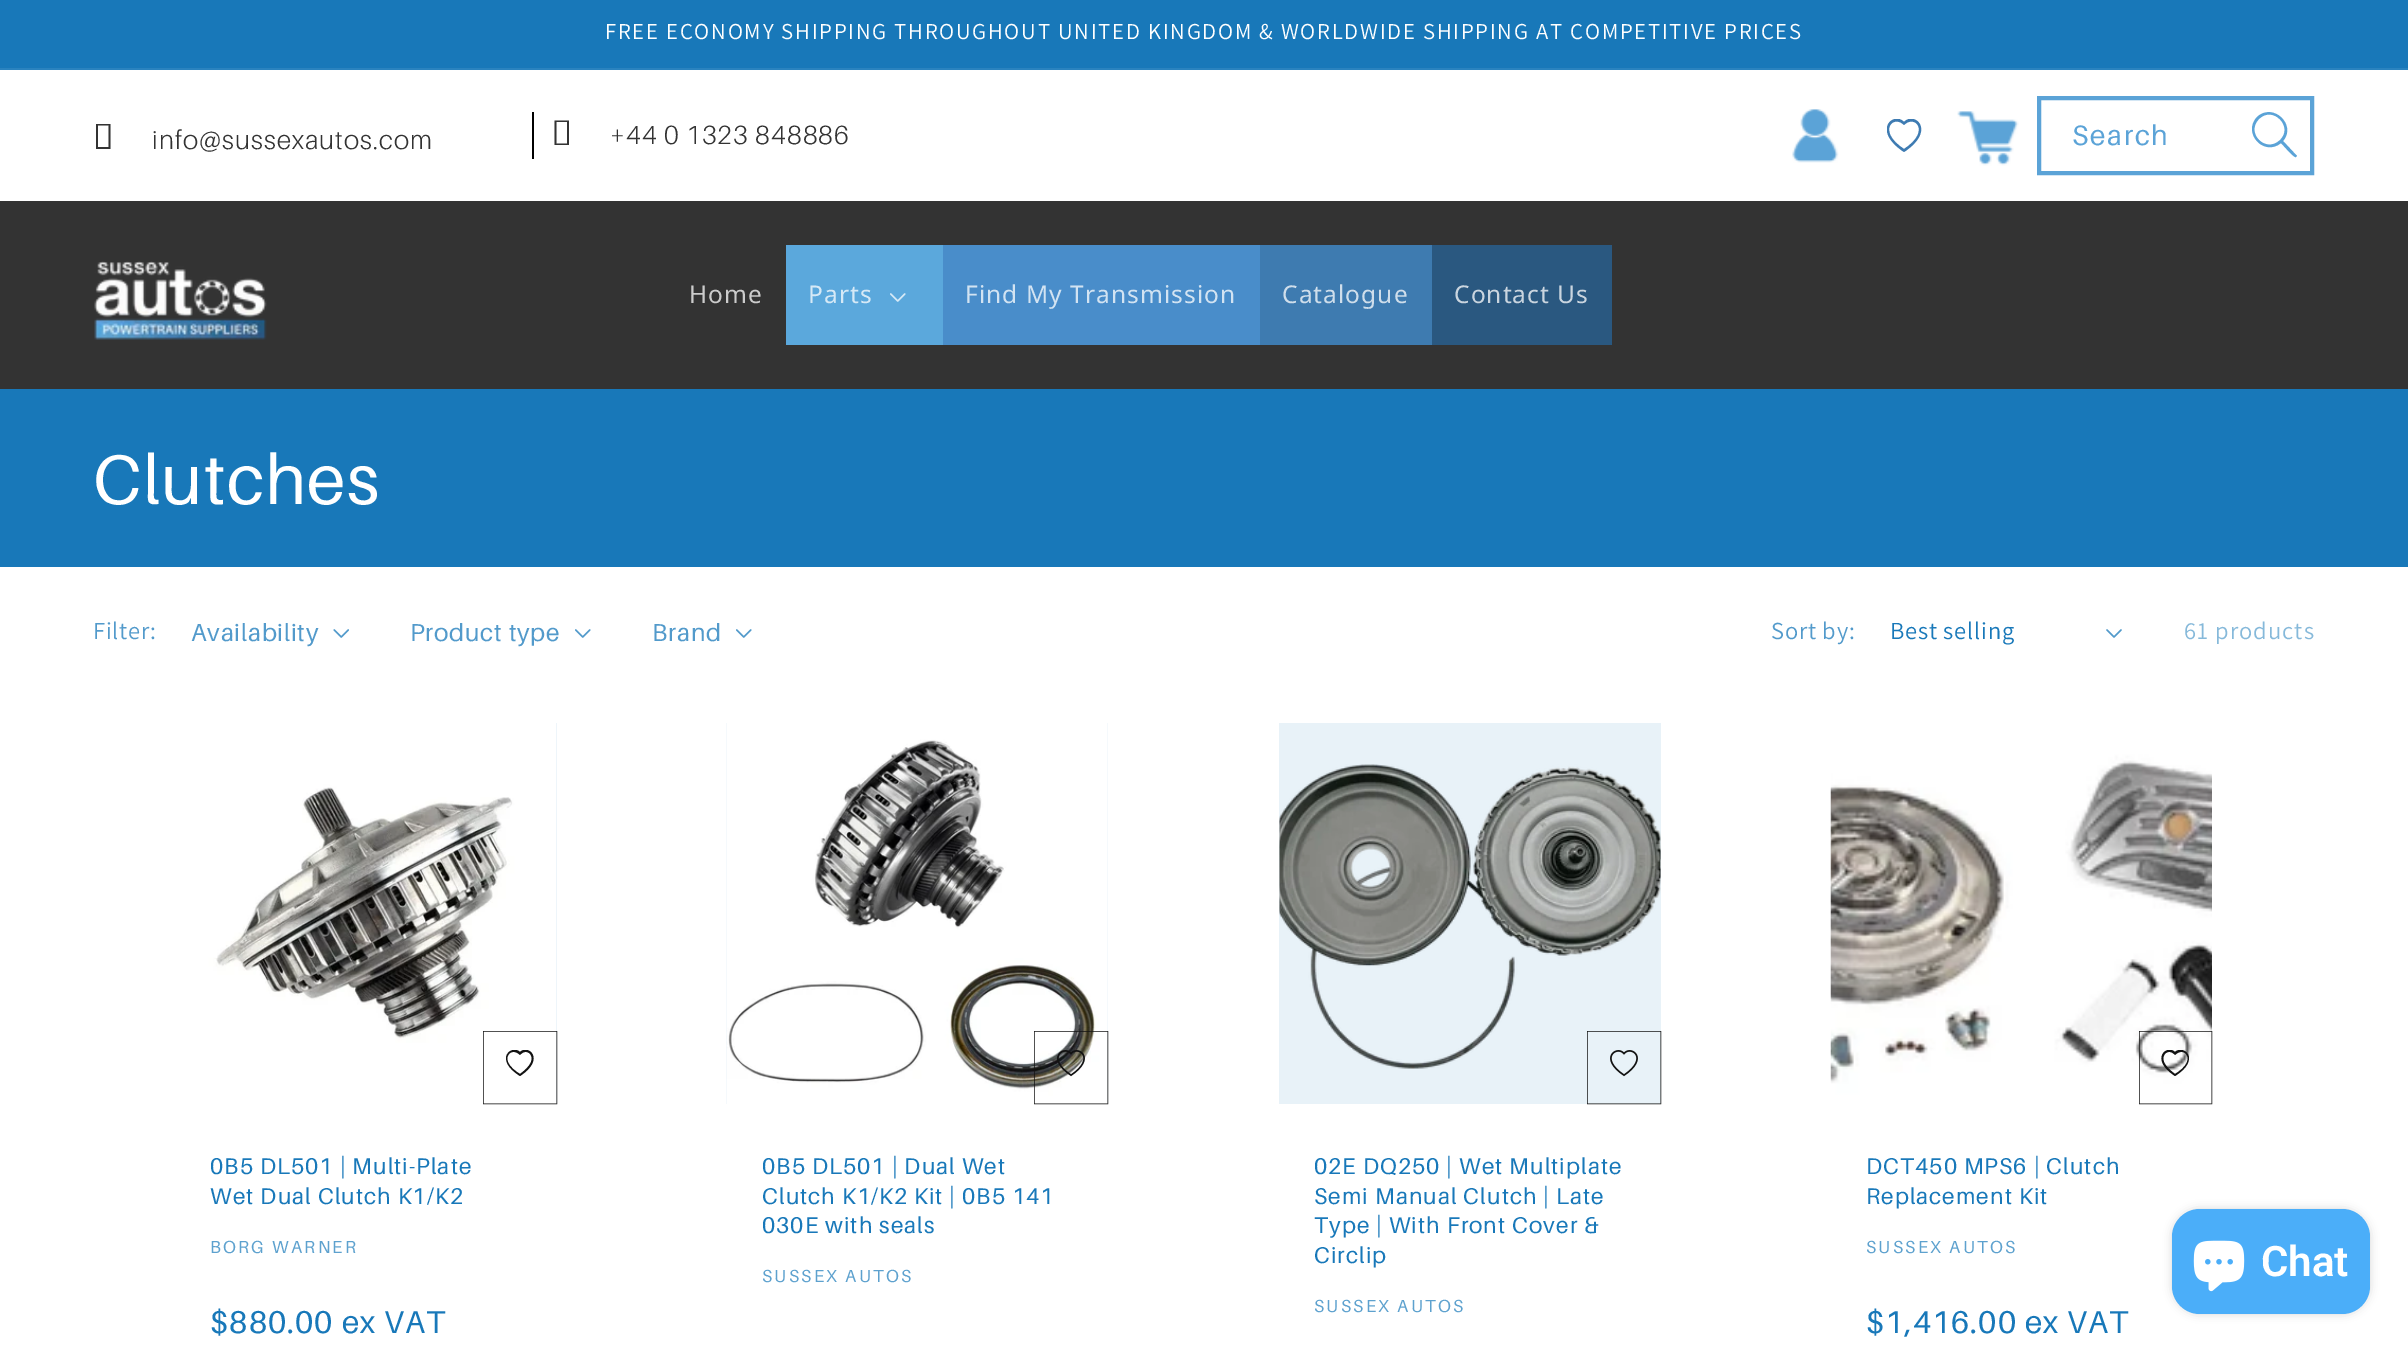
%!PS-Adobe-3.0
%%BoundingBox: 0 0 2408 1350
%%LanguageLevel: 3
%%Pages: 1
%%EndComments
%%BeginProlog
/setink { 3 { 255 div 3 1 roll } repeat setrgbcolor } def
/usefont { [ exch dup neg 0 0 3 -1 roll 0 0 ] selectfont } def
/drawtext { setink usefont moveto show } def
/fillbox { setink rectfill } def
/setalpha { dup .setfillconstantalpha .setstrokeconstantalpha } def
/rrect { 5 dict begin { /r /h /w /y /x } { exch def } forall
  x r add y moveto x w add y 2 copy h add r arct x w add y h add x 1 index r arct
  x y h add x y r arct x y 2 copy exch w add exch r arct closepath end } def
/softshadow { 12 dict begin { /a /b /q /h /w /y /x } { exch def } forall gsave /was 0 def
  9 -2 -9 { dup b mul 4 div /e exch def 1 sub .425 mul 2.718 exch exp 1 add a .99 .min exch div /now exch def
    1 1 now sub 1 was sub div sub setalpha /was now def
    w h .min e 2 mul add 0 gt { x e sub y e sub w e 2 mul add h e 2 mul add
      q e add b .6 mul add w h .min 2 div e add .min 0 .max rrect fill } if } for grestore end } def
/drawimage { 5 dict begin { /h /w /y /x /name } { exch def } forall
  gsave x y translate w h scale
  w h 8 [w 0 0 h 0 0] name (r) file false 3 colorimage grestore end } def
%%EndProlog
%%BeginSetup
<< /PageSize [2408 1350] /PageUsesTransparency true >> setpagedevice
%%EndSetup
%%Page: 1 1
0 .pushpdf14devicefilter
0 1350 translate 1 -1 scale
4 setmiterlimit
0 0 2408 1350 255 255 255 fillbox
0 0 2408 68 24 120 185 fillbox
0 68 2408 2 42 131 191 fillbox
/Assistant-Regular 22.75 usefont
255 255 255 setink
605 39 moveto 1.75 0 (FREE ECONOMY SHIPPING THROUGHOUT UNITED KINGDOM & WORLDWIDE SHIPPING AT COMPETITIVE PRICES) ashow
0 201 2408 188 51 51 51 fillbox
532 112 2 47 0 0 0 fillbox
51 51 51 setink
96 149 moveto 96 124 lineto 110.5 124 lineto 110.5 149 lineto closepath 98 147 moveto 108.5 147 lineto 108.5 125.5 lineto 98 125.5 lineto closepath fill
/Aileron-Light 26.25 usefont
152 149 moveto 1.05 0 (info@sussexautos.com) ashow
554.5 145 moveto 554.5 120.5 lineto 569 120.5 lineto 569 145 lineto closepath 556.5 143.5 moveto 567 143.5 lineto 567 122 lineto 556.5 122 lineto closepath fill
610 144 moveto 1.05 0 (+44 0 1323 848886) ashow
(assets/img1.rgb) 1792 109 47 54 drawimage
gsave
1887 119 35 35 rectclip
62 123 178 setink
1904 125 moveto 1896 117 1886 124 1890 134 curveto 1892 140 1898 145 1904 149 curveto 1910 145 1916 140 1918 134 curveto 1922 124 1912 117 1904 125 curveto closepath 1904 152 moveto 1871 130 1894 111 1904 122 curveto 1914 111 1937 130 1904 152 curveto closepath fill
grestore
(assets/img2.rgb) 1957 111 62 55 drawimage
91 163 215 setink
4 setlinewidth
2039 98 273 75 rectstroke
/Aileron-Regular 28 usefont
2072 145 moveto 1.75 0 (Search) ashow
2280 140 moveto 2266 154 2245 133 2259 119 curveto 2273 105 2294 127 2280 140 curveto closepath 2281 143 moveto 2264 157 2242 133 2257 117 curveto 2273 102 2297 125 2283 141 curveto 2297 156 lineto 2296 157 lineto 2295 159 2283 145 2281 143 curveto closepath eofill
(assets/img3.rgb) 94 261 173 79 drawimage
/NotoSans-Regular 24.5 usefont
204 204 204 setink
689 303 moveto 1.05 0 (Home) ashow
786 245 157 100 91 168 220 fillbox
214 233 246 setink
808 303 moveto 1.05 0 (Parts) ashow
(assets/img4.rgb) 890 293 16 9 drawimage
943 245 317 100 73 141 202 fillbox
210 227 242 setink
965 303 moveto 1.05 0 (Find My Transmission) ashow
1260 245 172 100 62 123 176 fillbox
207 222 235 setink
1282 303 moveto 1.05 0 (Catalogue) ashow
1432 245 180 100 42 88 128 fillbox
202 213 223 setink
1454 303 moveto 1.05 0 (Contact Us) ashow
0 389 2408 178 24 120 185 fillbox
/Aileron-Regular 70 usefont
255 255 255 setink
93 504 moveto 1.05 0 (Clutches) ashow
/Assistant-Regular 24.5 usefont
82 154 203 setink
93 639 moveto 0.75 0 (Filter:) ashow
/Aileron-Regular 24.5 usefont
191 641 moveto 0.75 0 (Availability) ashow
(assets/img5.rgb) 333 629 16 9 drawimage
410 641 moveto 0.75 0 (Product type) ashow
(assets/img6.rgb) 575 629 16 9 drawimage
652 641 moveto 0.75 0 (Brand) ashow
(assets/img6.rgb) 736 629 16 9 drawimage
/Assistant-Regular 24.5 usefont
1771 639 moveto 0.75 0 (Sort by:) ashow
24 120 185 setink
1890 639 moveto 0.75 0 (Best selling) ashow
(assets/img7.rgb) 2106 629 16 9 drawimage
134 185 218 setink
2184 639 moveto 1.05 0 (61 products) ashow
556 723 1 381 232 242 248 fillbox
(assets/img8.rgb) 175 723 382 381 drawimage
gsave
506 1050 28 28 rectclip
18 18 18 setink
520 1055 moveto 513 1048 505 1054 508 1062 curveto 510 1067 515 1071 520 1074 curveto 524 1071 529 1067 531 1062 curveto 534 1054 526 1048 520 1055 curveto closepath 520 1076 moveto 493 1059 512 1044 520 1052 curveto 528 1044 546 1059 520 1076 curveto closepath fill
grestore
18 18 18 setink
0.5 setlinewidth
483.25 1031.25 73.5 72.5 rectstroke
/Aileron-Regular 22.75 usefont
24 120 185 setink
210 1174 moveto 1.05 0 (0B5 DL501 | Multi-Plate) ashow
210 1204 moveto 1.05 0 (Wet Dual Clutch K1/K2) ashow
/Aileron-Regular 17.5 usefont
93 161 206 setink
210 1253 moveto 2.25 0 (BORG WARNER) ashow
/Aileron-Regular 31.5 usefont
24 120 185 setink
210 1333 moveto 1.05 0 ($880.00 ex VAT) ashow
726 723 382 381 232 242 248 fillbox
(assets/img9.rgb) 726 723 382 381 drawimage
(assets/img10.rgb) 1057 1050 28 27 drawimage
18 18 18 setink
1034.25 1031.25 73.5 72.5 rectstroke
/Aileron-Regular 22.75 usefont
24 120 185 setink
762 1174 moveto 1.05 0 (0B5 DL501 | Dual Wet) ashow
762 1204 moveto 1.05 0 (Clutch K1/K2 Kit | 0B5 141) ashow
762 1233 moveto 1.05 0 (030E with seals) ashow
/Aileron-Regular 17.5 usefont
93 161 206 setink
762 1282 moveto 2.25 0 (SUSSEX AUTOS) ashow
1279 723 382 381 232 242 248 fillbox
(assets/img11.rgb) 1279 764 382 305 drawimage
(assets/img12.rgb) 1610 1050 28 27 drawimage
18 18 18 setink
1587.25 1031.25 73.5 72.5 rectstroke
/Aileron-Regular 22.75 usefont
24 120 185 setink
1314 1174 moveto 1.05 0 (02E DQ250 | Wet Multiplate) ashow
1314 1204 moveto 1.05 0 (Semi Manual Clutch | Late) ashow
1314 1233 moveto 1.05 0 (Type | With Front Cover &) ashow
1314 1263 moveto 1.05 0 (Circlip) ashow
/Aileron-Regular 17.5 usefont
93 161 206 setink
1314 1312 moveto 2.25 0 (SUSSEX AUTOS) ashow
(assets/img13.rgb) 1830 723 382 381 drawimage
gsave
2161 1050 28 28 rectclip
18 18 18 setink
2175 1055 moveto 2169 1048 2161 1054 2164 1062 curveto 2166 1067 2171 1071 2175 1074 curveto 2180 1071 2185 1067 2187 1062 curveto 2190 1054 2182 1048 2175 1055 curveto closepath 2175 1076 moveto 2149 1059 2167 1044 2175 1052 curveto 2183 1044 2202 1059 2175 1076 curveto closepath fill
grestore
18 18 18 setink
2139.25 1031.25 72.5 72.5 rectstroke
/Aileron-Regular 22.75 usefont
24 120 185 setink
1866 1174 moveto 1.05 0 (DCT450 MPS6 | Clutch) ashow
1866 1204 moveto 1.05 0 (Replacement Kit) ashow
/Aileron-Regular 17.5 usefont
93 161 206 setink
1866 1253 moveto 2.25 0 (SUSSEX AUTOS) ashow
/Aileron-Regular 31.5 usefont
24 120 185 setink
1866 1333 moveto 1.05 0 ($1,416.00 ex VAT) ashow
0 0 0 setink
2172 1209 198 105 28 4.5 0.15 softshadow
75 174 249 setink
2172 1209 198 105 28 rrect fill
(assets/img14.rgb) 2193 1240 52 52 drawimage
(Chat) 2261 1276 /Roboto-SemiBold 42 255 255 255 drawtext
.poppdf14devicefilter showpage
%%EOF
